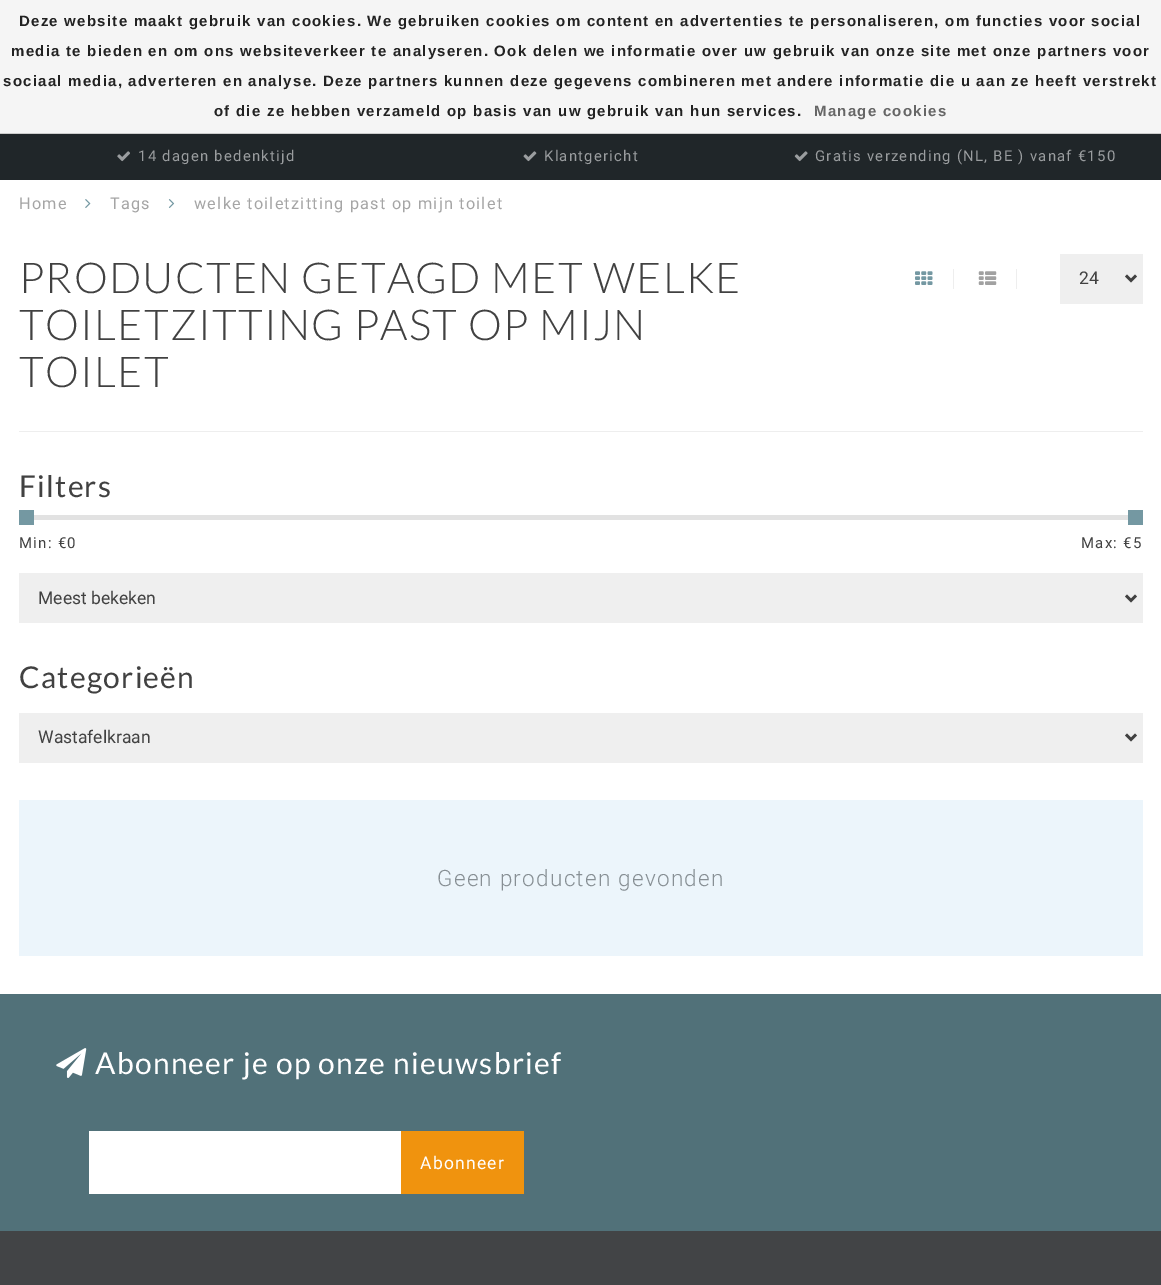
%!PS-Adobe-3.0
%%BoundingBox: 0 0 1161 1285
%%LanguageLevel: 3
%%Pages: 1
%%EndComments
%%BeginProlog
/setink { 3 { 255 div 3 1 roll } repeat setrgbcolor } def
/usefont { [ exch dup neg 0 0 3 -1 roll 0 0 ] selectfont } def
/drawtext { setink usefont moveto show } def
/fillbox { setink rectfill } def
/drawimage { 5 dict begin { /h /w /y /x /name } { exch def } forall
  gsave x y translate w h scale
  w h 8 [w 0 0 h 0 0] name (r) file false 3 colorimage grestore end } def
%%EndProlog
%%BeginSetup
<< /PageSize [1161 1285] >> setpagedevice
%%EndSetup
%%Page: 1 1
0 1285 translate 1 -1 scale
4 setmiterlimit
0 0 1161 1285 255 255 255 fillbox
0 0 1161 133 245 245 245 fillbox
0 133 1161 1 204 204 204 fillbox
/LiberationSans-Bold 15 usefont
34 34 34 setink
19 26 moveto 1.25 0 (Deze website maakt gebruik van cookies. We gebruiken cookies om content en advertenties te personaliseren, om functies voor social) ashow
11 56 moveto 1.25 0 (media te bieden en om ons websiteverkeer te analyseren. Ook delen we informatie over uw gebruik van onze site met onze partners voor) ashow
3 86 moveto 1.25 0 (sociaal media, adverteren en analyse. Deze partners kunnen deze gegevens combineren met andere informatie die u aan ze heeft verstrekt) ashow
214 116 moveto 1.25 0 (of die ze hebben verzameld op basis van uw gebruik van hun services.) ashow
102 102 102 setink
814 116 moveto 1.25 0 (Manage cookies) ashow
0 134 1161 46 32 38 41 fillbox
(assets/img1.rgb) 117 151 13 11 drawimage
/Roboto-Regular 14.9 usefont
154 157 159 setink
138 161 moveto 1.25 0 (14 dagen bedenktijd) ashow
(assets/img2.rgb) 523 151 14 11 drawimage
544 161 moveto 1.25 0 (Klantgericht) ashow
(assets/img3.rgb) 794 151 14 11 drawimage
815 161 moveto 1.25 0 (Gratis verzending \(NL, BE \) vanaf €150) ashow
/Roboto-Regular 16.25 usefont
165 165 165 setink
19 209 moveto 1.25 0 (Home) ashow
(assets/img4.rgb) 85 199 6 9 drawimage
110 209 moveto 1.25 0 (Tags) ashow
(assets/img5.rgb) 168 199 7 9 drawimage
194 209 moveto 1.25 0 (welke toiletzitting past op mijn toilet) ashow
/Lato-Light 42.5 usefont
65 65 65 setink
19 293 moveto 1.25 0 (PRODUCTEN GETAGD MET WELKE) ashow
19 340 moveto 1.25 0 (TOILETZITTING PAST OP MIJN) ashow
19 387 moveto 1.25 0 (TOILET) ashow
953 269 1 20 238 238 238 fillbox
(assets/img6.rgb) 915 271 18 14 drawimage
1016 269 1 20 238 238 238 fillbox
(assets/img7.rgb) 978 271 19 14 drawimage
1060 254 83 50 239 239 239 fillbox
65 65 65 setink
2.5 setlinewidth
1126 275.5 moveto 1131 280.5 lineto 1136 275.5 lineto stroke
(24) 1079 284 /Roboto-Regular 17.5 65 65 65 drawtext
19 431 1124 1 238 238 238 fillbox
/Lato-Regular 30 usefont
65 65 65 setink
19 497 moveto 1.25 0 (Filters) ashow
31 515 1097 5 226 226 226 fillbox
19 510 15 15 116 152 162 fillbox
1128 510 15 15 116 152 162 fillbox
/Roboto-Regular 15 usefont
65 65 65 setink
19 548 moveto 1.25 0 (Min: €0) ashow
1081 548 moveto 1.25 0 (Max: €5) ashow
19 573 1124 50 239 239 239 fillbox
65 65 65 setink
1126 595.5 moveto 1131 600.5 lineto 1136 595.5 lineto stroke
(Meest bekeken) 38 604 /Roboto-Regular 17.5 65 65 65 drawtext
/Lato-Regular 30 usefont
19 688 moveto 1.25 0 (Categorieën) ashow
19 713 1124 50 239 239 239 fillbox
65 65 65 setink
1126 734.5 moveto 1131 739.5 lineto 1136 734.5 lineto stroke
(Wastafelkraan) 38 743 /Roboto-Regular 17.5 65 65 65 drawtext
19 800 1124 156 236 245 251 fillbox
/Roboto-Light 22.5 usefont
135 143 148 setink
437 886 moveto 1.25 0 (Geen producten gevonden) ashow
0 1231 1161 54 66 68 70 fillbox
0 994 1161 237 81 113 121 fillbox
(assets/img8.rgb) 56 1048 31 30 drawimage
/Lato-Regular 30 usefont
255 255 255 setink
95 1074 moveto 1.25 0 (Abonneer je op onze nieuwsbrief) ashow
89 1131 312 63 255 255 255 fillbox
401 1131 123 63 240 147 14 fillbox
/Roboto-Regular 17.5 usefont
255 255 255 setink
420 1169 moveto 1.25 0 (Abonneer) ashow
showpage
%%EOF
